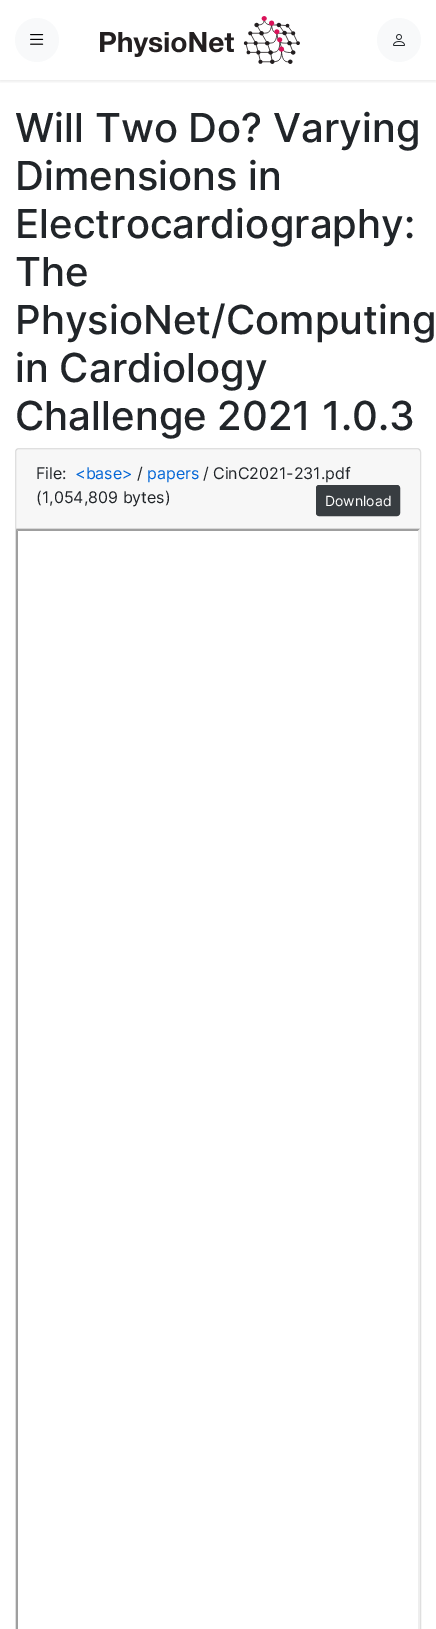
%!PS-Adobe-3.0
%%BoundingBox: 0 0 436 1629
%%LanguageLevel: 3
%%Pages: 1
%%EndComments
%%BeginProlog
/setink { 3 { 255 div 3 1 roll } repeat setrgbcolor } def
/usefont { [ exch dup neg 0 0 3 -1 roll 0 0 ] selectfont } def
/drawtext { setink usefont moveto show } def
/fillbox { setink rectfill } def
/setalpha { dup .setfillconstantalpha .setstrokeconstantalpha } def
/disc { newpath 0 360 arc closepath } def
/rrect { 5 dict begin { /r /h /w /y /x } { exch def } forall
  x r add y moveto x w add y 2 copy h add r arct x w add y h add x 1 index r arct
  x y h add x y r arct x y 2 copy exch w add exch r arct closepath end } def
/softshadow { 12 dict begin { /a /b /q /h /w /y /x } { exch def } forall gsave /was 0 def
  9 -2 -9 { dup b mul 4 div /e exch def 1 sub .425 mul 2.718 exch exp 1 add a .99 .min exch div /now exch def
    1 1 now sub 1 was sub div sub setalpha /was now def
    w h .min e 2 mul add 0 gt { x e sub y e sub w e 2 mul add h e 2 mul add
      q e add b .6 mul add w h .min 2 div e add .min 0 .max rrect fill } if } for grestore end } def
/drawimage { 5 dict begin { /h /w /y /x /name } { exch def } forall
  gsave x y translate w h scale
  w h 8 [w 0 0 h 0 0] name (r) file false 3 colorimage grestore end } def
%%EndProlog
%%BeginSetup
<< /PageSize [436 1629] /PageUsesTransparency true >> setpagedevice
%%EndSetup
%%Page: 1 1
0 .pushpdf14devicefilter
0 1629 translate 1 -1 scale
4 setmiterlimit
0 0 436 1629 255 255 255 fillbox
gsave
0 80 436 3 rectclip
0 0 0 setink
0 1 436 80 0 2 0.1 softshadow
grestore
248 249 250 setink
37 40 22 disc fill
(assets/img1.rgb) 30 34 14 11 drawimage
(assets/img2.rgb) 100 16 200 48 drawimage
399 40 22 disc fill
(assets/img3.rgb) 393 34 12 12 drawimage
(Will Two Do? Varying) 15 142 /Inter-Medium 40 33 37 41 drawtext
(Dimensions in) 15 190 /Inter-Medium 40 33 37 41 drawtext
(Electrocardiography:) 15 238 /Inter-Medium 40 33 37 41 drawtext
(The) 15 286 /Inter-Medium 40 33 37 41 drawtext
(PhysioNet/Computing) 15 334 /Inter-Medium 40 33 37 41 drawtext
(in Cardiology) 15 382 /Inter-Medium 40 33 37 41 drawtext
(Challenge 2021 1.0.3) 15 430 /Inter-Medium 40 33 37 41 drawtext
223 223 223 setink
15.5 448.5 405 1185 3.5 rrect stroke
0.03 setalpha
16 449 404 79 0 0 0 fillbox
1 setalpha
16 528 404 1 216 216 216 fillbox
(File:) 36 479 /Inter-Regular 16 33 37 41 drawtext
(<base>) 75 479 /Inter-Regular 16 3 102 214 drawtext
(/) 137 479 /Inter-Regular 16 33 37 41 drawtext
(papers) 147 479 /Inter-Regular 16 3 102 214 drawtext
(/) 203 479 /Inter-Regular 16 33 37 41 drawtext
(CinC2021-231.pdf) 213 479 /Inter-Regular 16 33 37 41 drawtext
(\(1,054,809 bytes\)) 36 503 /Inter-Regular 16 33 37 41 drawtext
56 61 65 setink
316.5 485.5 83 30 2.5 rrect gsave fill grestore
stroke
(Download) 325 506 /Inter-Regular 14 255 255 255 drawtext
159 159 159 setink
16 529 moveto 420 529 lineto 418 531 lineto 18 531 lineto closepath fill
238 238 238 setink
420 529 moveto 420 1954 lineto 418 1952 lineto 418 531 lineto closepath fill
159 159 159 setink
16 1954 moveto 16 529 lineto 18 531 lineto 18 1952 lineto closepath fill
.poppdf14devicefilter showpage
%%EOF
